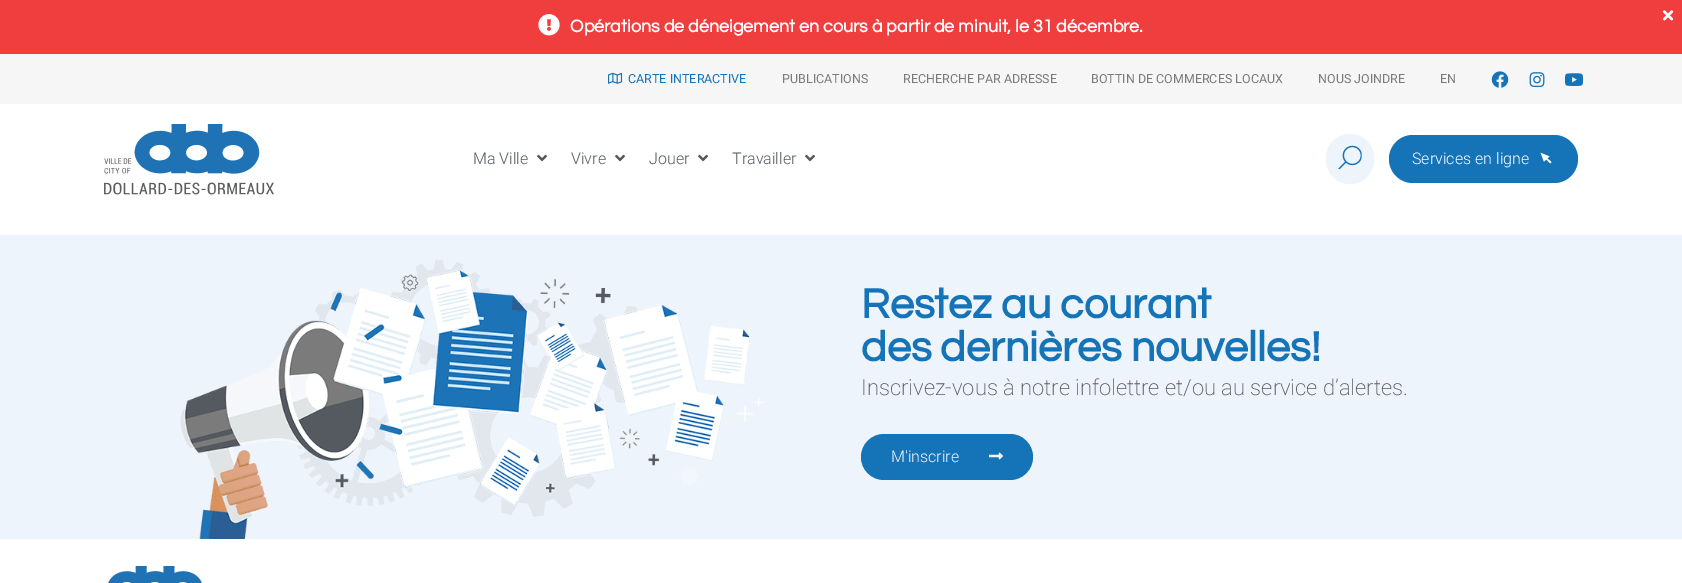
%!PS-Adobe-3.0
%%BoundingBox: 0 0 1682 583
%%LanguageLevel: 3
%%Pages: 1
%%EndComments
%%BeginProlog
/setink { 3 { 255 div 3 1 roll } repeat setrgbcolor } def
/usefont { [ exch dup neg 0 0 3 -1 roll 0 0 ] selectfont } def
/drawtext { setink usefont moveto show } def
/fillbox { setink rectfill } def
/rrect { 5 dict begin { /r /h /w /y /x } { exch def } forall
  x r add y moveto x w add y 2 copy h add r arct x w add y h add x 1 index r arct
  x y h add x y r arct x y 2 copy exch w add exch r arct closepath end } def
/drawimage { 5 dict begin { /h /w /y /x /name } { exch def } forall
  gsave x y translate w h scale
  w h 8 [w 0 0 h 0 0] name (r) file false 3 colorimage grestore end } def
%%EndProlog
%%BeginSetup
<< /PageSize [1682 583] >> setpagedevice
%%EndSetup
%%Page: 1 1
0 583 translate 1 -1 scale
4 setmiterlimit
0 0 1682 583 255 255 255 fillbox
0 0 1682 54 240 61 61 fillbox
(assets/img1.rgb) 538 14 22 22 drawimage
(Opérations de déneigement en cours à partir de minuit, le 31 décembre.) 570 32 /Questrial-Bold 18 255 255 255 drawtext
(assets/img2.rgb) 1662 10 12 11 drawimage
0 54 1682 50 246 246 246 fillbox
(assets/img3.rgb) 608 72 15 12 drawimage
(CARTE INTERACTIVE) 628 83 /Roboto-Regular 12.5 21 115 184 drawtext
(PUBLICATIONS) 782 83 /Roboto-Regular 12.5 122 122 122 drawtext
(RECHERCHE PAR ADRESSE) 903 83 /Roboto-Regular 12.5 122 122 122 drawtext
(BOTTIN DE COMMERCES LOCAUX) 1091 83 /Roboto-Regular 12.5 122 122 122 drawtext
(NOUS JOINDRE) 1318 83 /Roboto-Regular 12.5 122 122 122 drawtext
(EN) 1440 83 /Roboto-Regular 12.5 122 122 122 drawtext
(assets/img4.rgb) 1491 71 18 17 drawimage
(assets/img5.rgb) 1529 72 16 16 drawimage
(assets/img6.rgb) 1564 73 20 13 drawimage
(assets/img7.rgb) 104 124 170 71 drawimage
(Ma Ville) 473 164 /Roboto-Light 16 84 89 95 drawtext
(assets/img8.rgb) 537 154 10 8 drawimage
(Vivre) 571 164 /Roboto-Light 16 84 89 95 drawtext
(assets/img8.rgb) 615 154 10 8 drawimage
(Jouer) 649 164 /Roboto-Light 16 84 89 95 drawtext
(assets/img8.rgb) 698 154 10 8 drawimage
(Travailler) 732 164 /Roboto-Light 16 84 89 95 drawtext
(assets/img8.rgb) 805 154 10 8 drawimage
238 244 252 setink
1326 134 48 50 24 rrect fill
(assets/img9.rgb) 1338 145 24 25 drawimage
21 115 184 setink
1389 135 189 48 24 rrect fill
(Services en ligne) 1412 164 /Roboto-Light 16 255 255 255 drawtext
(assets/img10.rgb) 1540 152 12 12 drawimage
0 235 1682 304 238 244 252 fillbox
(assets/img11.rgb) 179 260 585 279 drawimage
(Restez au courant) 861 318 /Questrial-Bold 43 21 115 184 drawtext
(des dernières nouvelles!) 861 361 /Questrial-Bold 43 21 115 184 drawtext
(Inscrivez-vous à notre infolettre et/ou au service d’alertes.) 861 395 /Roboto-ExtraLight 22 84 89 95 drawtext
21 115 184 setink
861 434 172 46 23 rrect fill
(M'inscrire) 891 462 /Roboto-Light 16 246 246 246 drawtext
(assets/img12.rgb) 989 452 14 8 drawimage
(assets/img13.rgb) 108 566 94 17 drawimage
showpage
%%EOF
